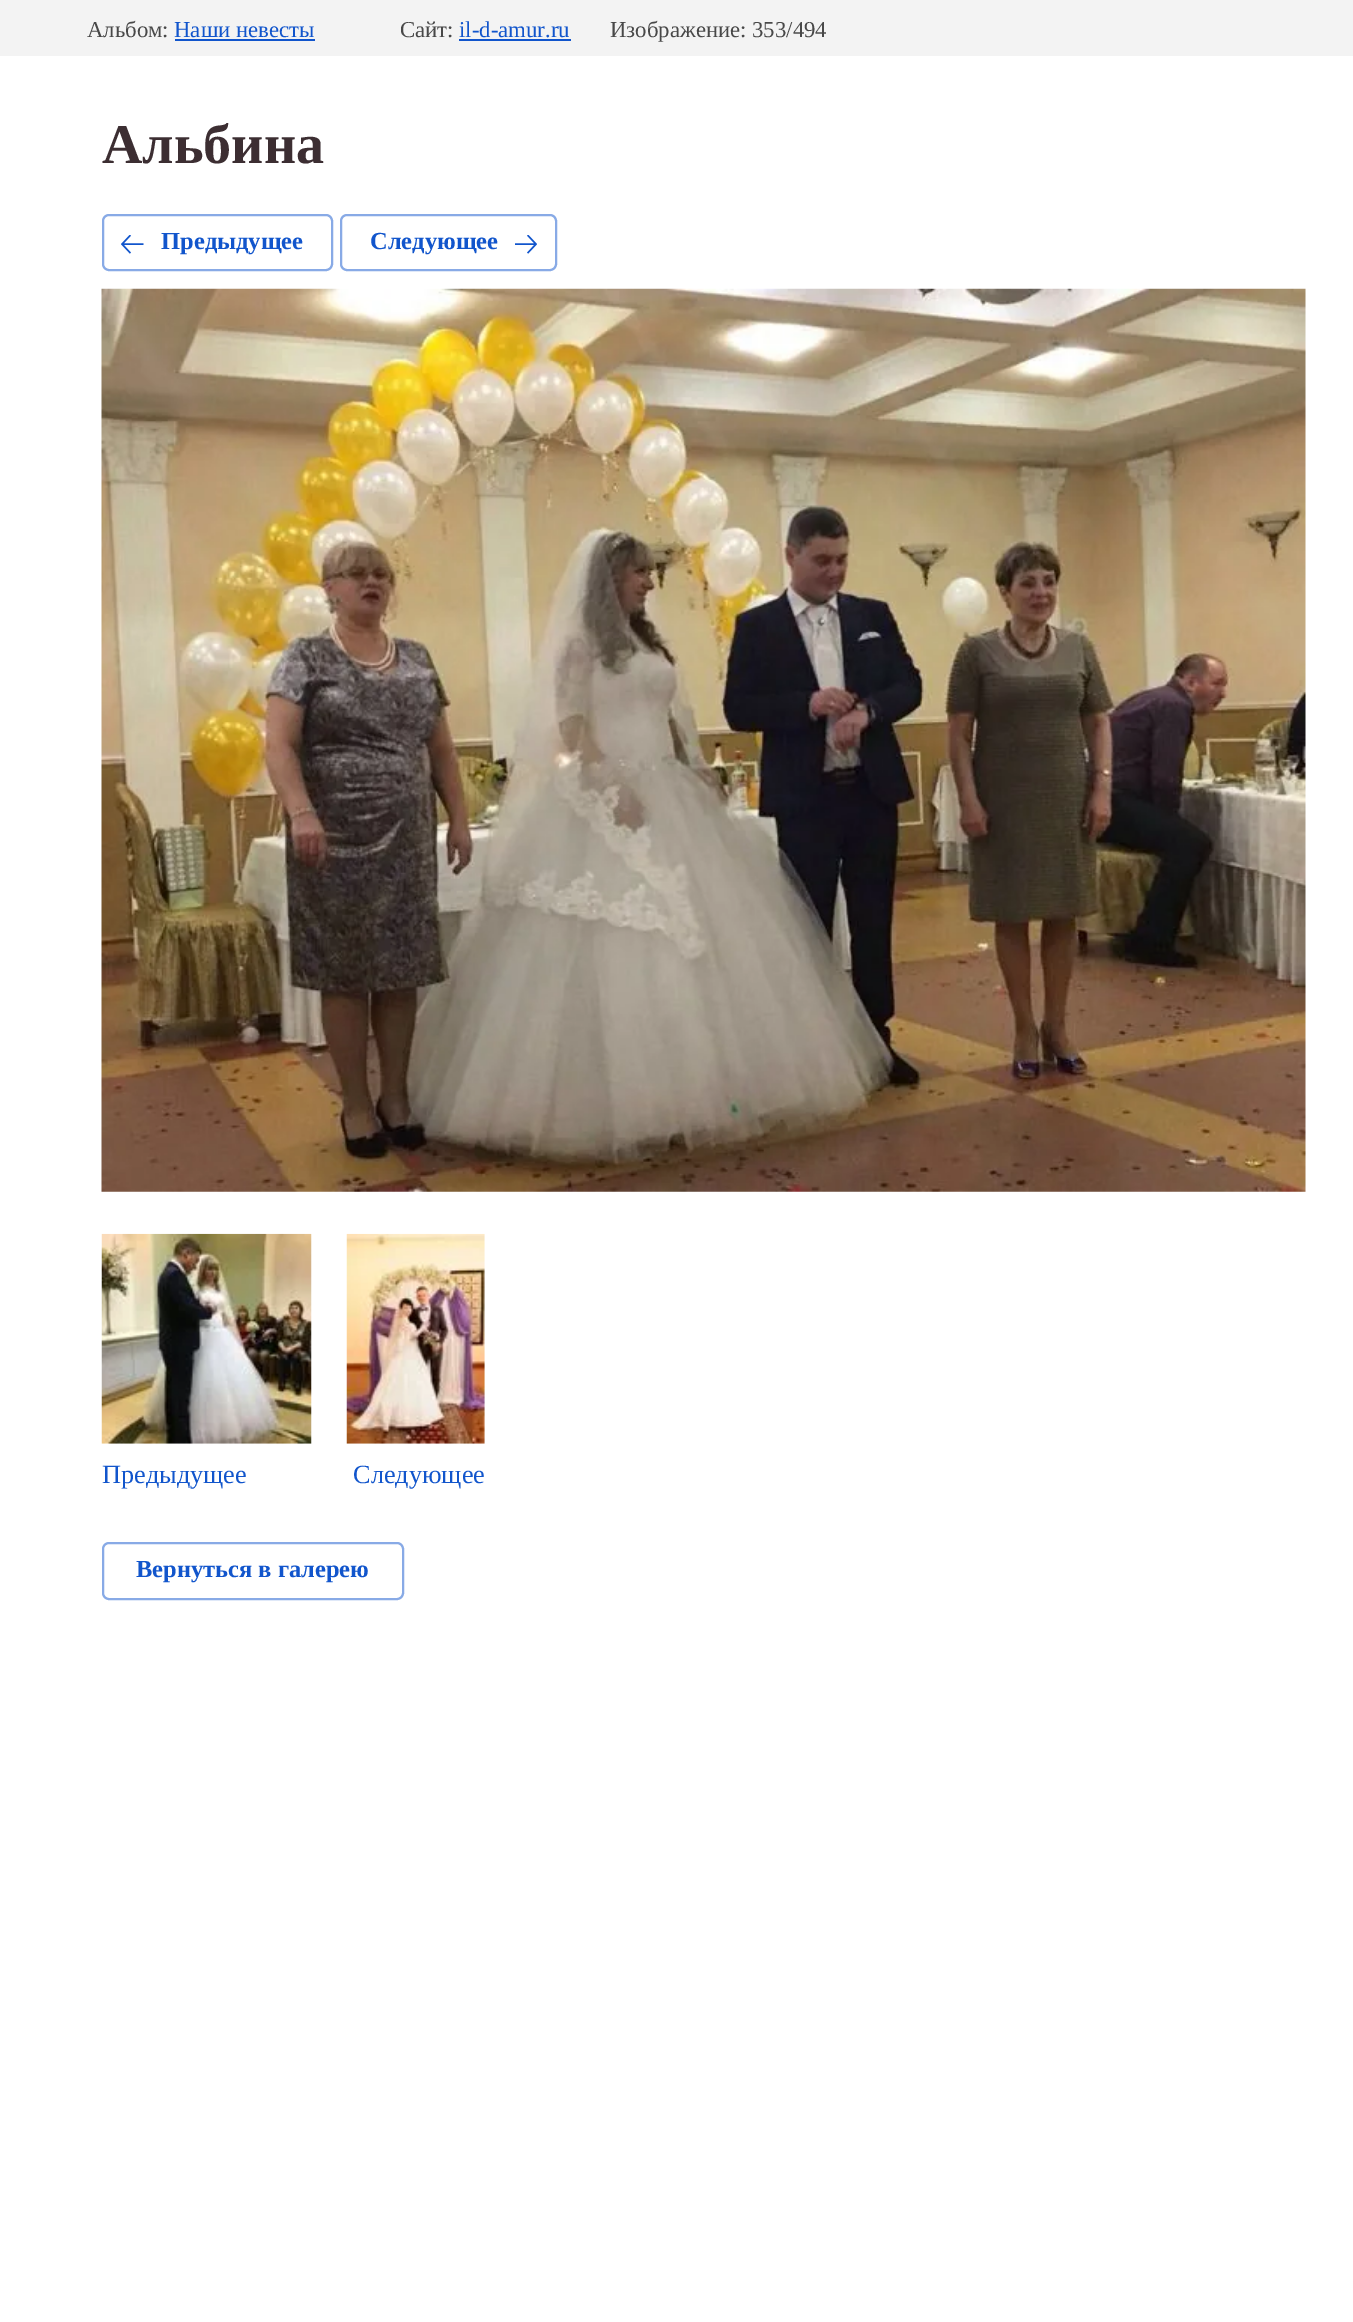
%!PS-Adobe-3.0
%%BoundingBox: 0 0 1353 2322
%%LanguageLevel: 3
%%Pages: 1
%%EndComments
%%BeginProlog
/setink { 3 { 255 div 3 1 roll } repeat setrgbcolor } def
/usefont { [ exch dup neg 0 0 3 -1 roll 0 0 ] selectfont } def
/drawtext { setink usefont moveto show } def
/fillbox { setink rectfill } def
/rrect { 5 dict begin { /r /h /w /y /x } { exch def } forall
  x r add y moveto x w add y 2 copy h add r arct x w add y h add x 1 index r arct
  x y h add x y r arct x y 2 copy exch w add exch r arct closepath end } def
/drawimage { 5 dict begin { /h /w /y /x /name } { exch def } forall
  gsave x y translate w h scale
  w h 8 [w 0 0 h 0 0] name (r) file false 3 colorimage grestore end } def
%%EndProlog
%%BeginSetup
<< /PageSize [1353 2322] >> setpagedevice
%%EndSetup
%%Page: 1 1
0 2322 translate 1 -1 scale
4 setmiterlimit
0 0 1353 2322 255 255 255 fillbox
0 0 1353 56 243 243 243 fillbox
(Альбом:) 87 37 /LiberationSerif-Regular 22.75 72 72 72 drawtext
(Наши невесты) 174 37 /LiberationSerif-Regular 22.75 17 85 204 drawtext
175 39 140 2 17 85 204 fillbox
(Сайт:) 400 37 /LiberationSerif-Regular 22.75 72 72 72 drawtext
(il-d-amur.ru) 459 37 /LiberationSerif-Regular 22.75 17 85 204 drawtext
459 39 112 2 17 85 204 fillbox
(Изображение: 353/494) 610 37 /LiberationSerif-Regular 22.75 72 72 72 drawtext
(Альбина) 102 163 /LiberationSerif-Bold 56 60 46 50 drawtext
136 170 230 setink
2 setlinewidth
103 215 229 55 6 rrect stroke
(assets/img1.rgb) 121 235 23 19 drawimage
(Предыдущее) 161 249 /LiberationSerif-Bold 24.5 17 85 204 drawtext
136 170 230 setink
341 215 215 55 6 rrect stroke
(Следующее) 370 249 /LiberationSerif-Bold 24.5 17 85 204 drawtext
(assets/img2.rgb) 515 235 22 19 drawimage
(assets/img3.rgb) 101 288 1205 904 drawimage
(assets/img4.rgb) 101 1233 211 211 drawimage
(Предыдущее) 102 1483 /LiberationSerif-Regular 26.25 17 85 204 drawtext
(assets/img5.rgb) 346 1233 139 211 drawimage
(Следующее) 353 1483 /LiberationSerif-Regular 26.25 17 85 204 drawtext
136 170 230 setink
103 1543 300 56 6 rrect stroke
(Вернуться в галерею) 136 1577 /LiberationSerif-Bold 24.5 17 85 204 drawtext
showpage
%%EOF
